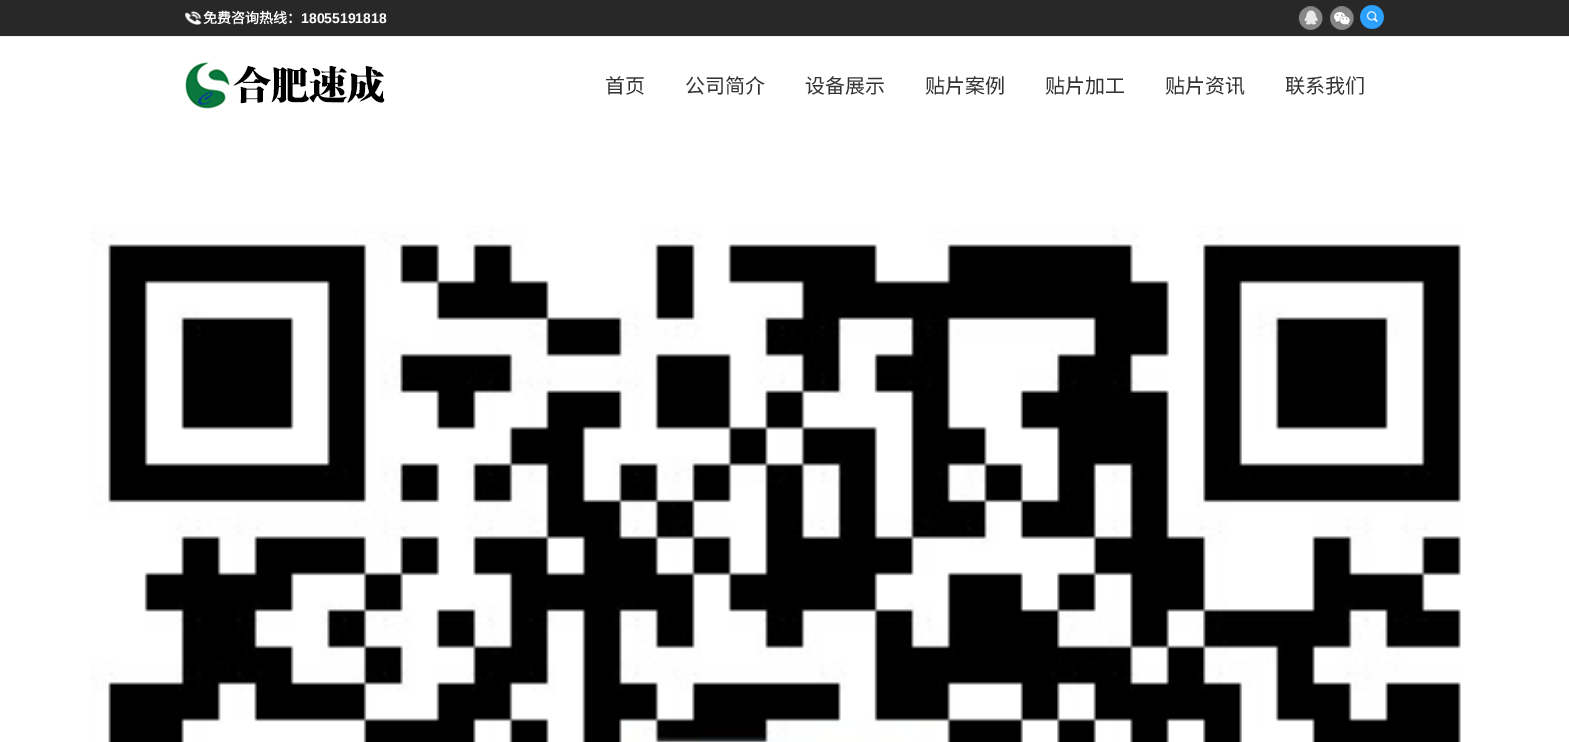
%!PS-Adobe-3.0
%%BoundingBox: 0 0 1569 742
%%LanguageLevel: 3
%%Pages: 1
%%EndComments
%%BeginProlog
/setink { 3 { 255 div 3 1 roll } repeat setrgbcolor } def
/usefont { [ exch dup neg 0 0 3 -1 roll 0 0 ] selectfont } def
/drawtext { setink usefont moveto show } def
/fillbox { setink rectfill } def
/drawimage { 5 dict begin { /h /w /y /x /name } { exch def } forall
  gsave x y translate w h scale
  w h 8 [w 0 0 h 0 0] name (r) file false 3 colorimage grestore end } def
%%EndProlog
%%BeginSetup
<< /PageSize [1569 742] >> setpagedevice
%%EndSetup
%%Page: 1 1
0 742 translate 1 -1 scale
4 setmiterlimit
0 0 1569 742 255 255 255 fillbox
0 0 1569 36 40 40 40 fillbox
(assets/img1.rgb) 185 11 17 14 drawimage
(免费咨询热线：) 203 23 /NotoSansCJKSC-Bold 14 255 255 255 drawtext
(18055191818) 301 23 /LiberationSans-Bold 14 255 255 255 drawtext
(assets/img2.rgb) 1298 6 25 24 drawimage
(assets/img3.rgb) 1330 6 24 24 drawimage
(assets/img4.rgb) 1360 5 24 24 drawimage
0 36 1569 1 238 238 238 fillbox
(assets/img5.rgb) 185 62 200 47 drawimage
(首页) 605 93 /NotoSansCJKSC-Regular 20 51 51 51 drawtext
(公司简介) 685 93 /NotoSansCJKSC-Regular 20 51 51 51 drawtext
(设备展示) 805 93 /NotoSansCJKSC-Regular 20 51 51 51 drawtext
(贴片案例) 925 93 /NotoSansCJKSC-Regular 20 51 51 51 drawtext
(贴片加工) 1045 93 /NotoSansCJKSC-Regular 20 51 51 51 drawtext
(贴片资讯) 1165 93 /NotoSansCJKSC-Regular 20 51 51 51 drawtext
(联系我们) 1285 93 /NotoSansCJKSC-Regular 20 51 51 51 drawtext
(assets/img6.rgb) 91 225 1478 517 drawimage
showpage
%%EOF
